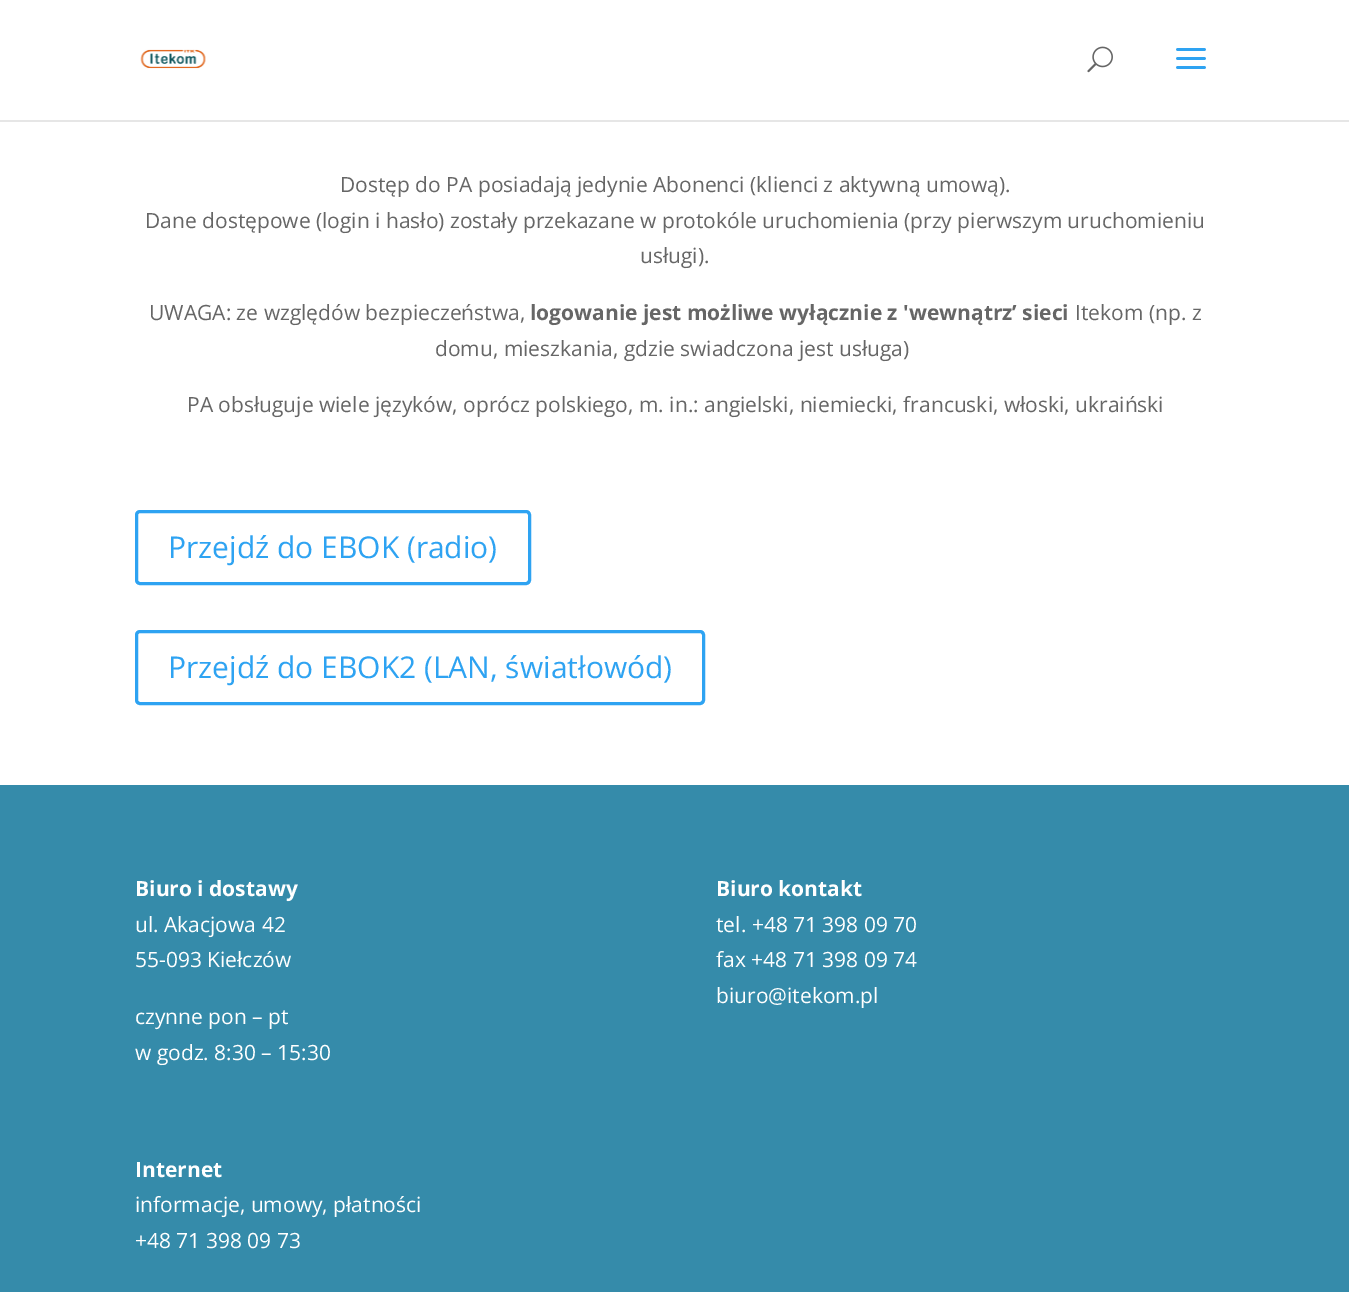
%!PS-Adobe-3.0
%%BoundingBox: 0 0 1349 1292
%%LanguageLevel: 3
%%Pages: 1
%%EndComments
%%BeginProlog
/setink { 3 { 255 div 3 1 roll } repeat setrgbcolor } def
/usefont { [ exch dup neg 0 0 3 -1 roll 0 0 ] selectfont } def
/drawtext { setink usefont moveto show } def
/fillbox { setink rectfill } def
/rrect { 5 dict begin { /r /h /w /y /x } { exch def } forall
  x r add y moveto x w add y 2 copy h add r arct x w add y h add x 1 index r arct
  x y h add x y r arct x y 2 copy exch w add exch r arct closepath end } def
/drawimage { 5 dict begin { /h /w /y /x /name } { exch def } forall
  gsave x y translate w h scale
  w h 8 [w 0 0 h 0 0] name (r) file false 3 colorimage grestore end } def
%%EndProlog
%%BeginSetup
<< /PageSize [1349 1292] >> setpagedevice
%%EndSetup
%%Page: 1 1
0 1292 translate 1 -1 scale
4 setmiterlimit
0 0 1349 1292 255 255 255 fillbox
0 120 1349 2 230 230 230 fillbox
(assets/img1.rgb) 140 49 66 20 drawimage
(assets/img2.rgb) 1087 46 26 27 drawimage
(assets/img3.rgb) 1176 48 30 21 drawimage
(Dostęp do PA posiadają jedynie Abonenci \(klienci z aktywną umową\).) 340 192 /OpenSans-Regular 21 102 102 102 drawtext
(Dane dostępowe \(login i hasło\) zostały przekazane w protokóle uruchomienia \(przy pierwszym uruchomieniu) 145 228 /OpenSans-Regular 21 102 102 102 drawtext
(usługi\).) 640 263 /OpenSans-Regular 21 102 102 102 drawtext
(UWAGA: ze względów bezpieczeństwa,) 149 320 /OpenSans-Regular 21 102 102 102 drawtext
(logowanie jest możliwe wyłącznie z 'wewnątrz’ sieci) 530 320 /OpenSans-Bold 21 102 102 102 drawtext
(Itekom \(np. z) 1075 320 /OpenSans-Regular 21 102 102 102 drawtext
(domu, mieszkania, gdzie swiadczona jest usługa\)) 435 356 /OpenSans-Regular 21 102 102 102 drawtext
(PA obsługuje wiele języków, oprócz polskiego, m. in.: angielski, niemiecki, francuski, włoski, ukraiński) 187 412 /OpenSans-Regular 21 102 102 102 drawtext
46 163 242 setink
3 setlinewidth
136.5 511.5 393 72 3.5 rrect stroke
(Przejdź do EBOK \(radio\)) 168 558 /OpenSans-Regular 30 46 163 242 drawtext
136.5 631.5 567 72 3.5 rrect stroke
(Przejdź do EBOK2 \(LAN, światłowód\)) 168 678 /OpenSans-Regular 30 46 163 242 drawtext
0 785 1349 507 53 139 170 fillbox
(Biuro i dostawy) 135 896 /OpenSans-Bold 21 255 255 255 drawtext
(ul. Akacjowa 42) 135 932 /OpenSans-Regular 21 255 255 255 drawtext
(55-093 Kiełczów) 135 967 /OpenSans-Regular 21 255 255 255 drawtext
(czynne pon – pt) 135 1024 /OpenSans-Regular 21 255 255 255 drawtext
(w godz. 8:30 – 15:30) 135 1060 /OpenSans-Regular 21 255 255 255 drawtext
(Biuro kontakt) 716 896 /OpenSans-Bold 21 255 255 255 drawtext
(tel. +48 71 398 09 70) 716 932 /OpenSans-Regular 21 255 255 255 drawtext
(fax +48 71 398 09 74) 716 967 /OpenSans-Regular 21 255 255 255 drawtext
(biuro@itekom.pl) 716 1003 /OpenSans-Regular 21 255 255 255 drawtext
(Internet) 135 1177 /OpenSans-Bold 21 255 255 255 drawtext
(informacje, umowy, płatności) 135 1212 /OpenSans-Regular 21 255 255 255 drawtext
(+48 71 398 09 73) 135 1248 /OpenSans-Regular 21 255 255 255 drawtext
showpage
%%EOF
